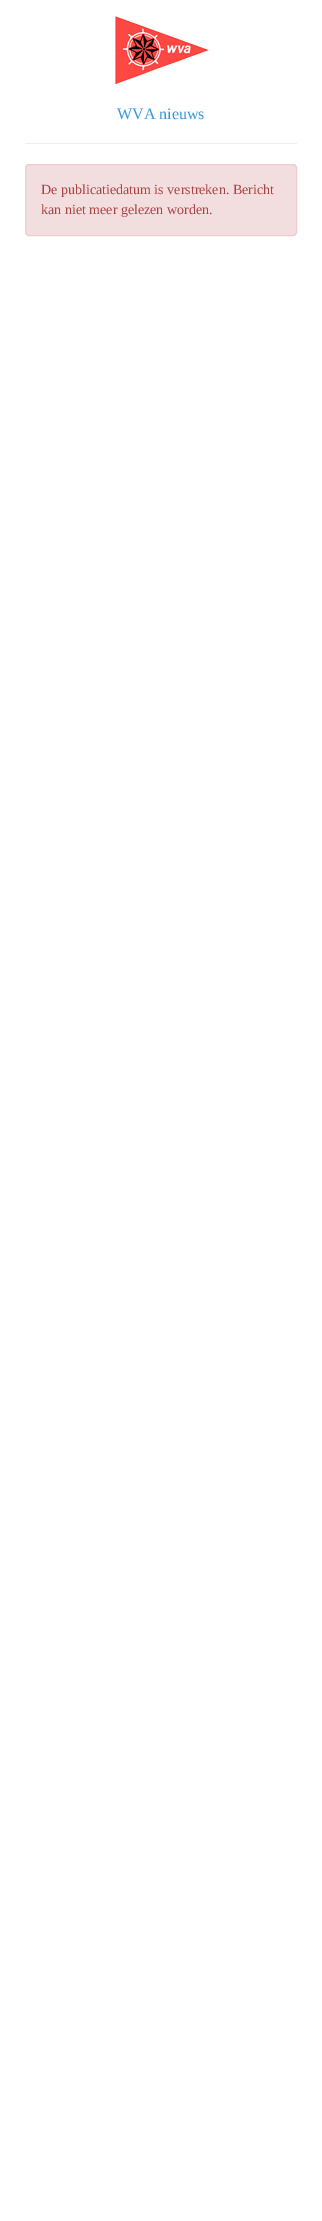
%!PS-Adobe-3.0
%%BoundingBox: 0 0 322 2221
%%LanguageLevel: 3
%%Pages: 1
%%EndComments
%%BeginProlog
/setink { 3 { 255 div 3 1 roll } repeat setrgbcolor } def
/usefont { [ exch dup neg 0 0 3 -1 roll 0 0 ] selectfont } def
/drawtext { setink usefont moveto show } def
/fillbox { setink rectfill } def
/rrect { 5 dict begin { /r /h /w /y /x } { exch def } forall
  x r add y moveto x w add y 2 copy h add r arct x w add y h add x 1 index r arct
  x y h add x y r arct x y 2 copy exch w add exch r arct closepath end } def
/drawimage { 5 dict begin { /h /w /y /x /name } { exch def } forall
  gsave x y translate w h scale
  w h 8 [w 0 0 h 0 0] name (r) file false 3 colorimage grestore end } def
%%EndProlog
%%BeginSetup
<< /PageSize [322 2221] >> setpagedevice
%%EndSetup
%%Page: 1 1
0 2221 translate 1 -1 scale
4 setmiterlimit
0 0 322 2221 255 255 255 fillbox
(assets/img1.rgb) 115 16 94 69 drawimage
(WVA nieuws) 117 119 /LiberationSerif-Regular 16 52 152 219 drawtext
25 143 272 1 238 238 238 fillbox
242 222 222 setink
25.5 164.5 271 71 3.5 rrect gsave fill grestore
235 204 209 setink
stroke
(De publicatiedatum is verstreken. Bericht) 41 194 /LiberationSerif-Regular 14 169 68 66 drawtext
(kan niet meer gelezen worden.) 41 214 /LiberationSerif-Regular 14 169 68 66 drawtext
showpage
%%EOF
